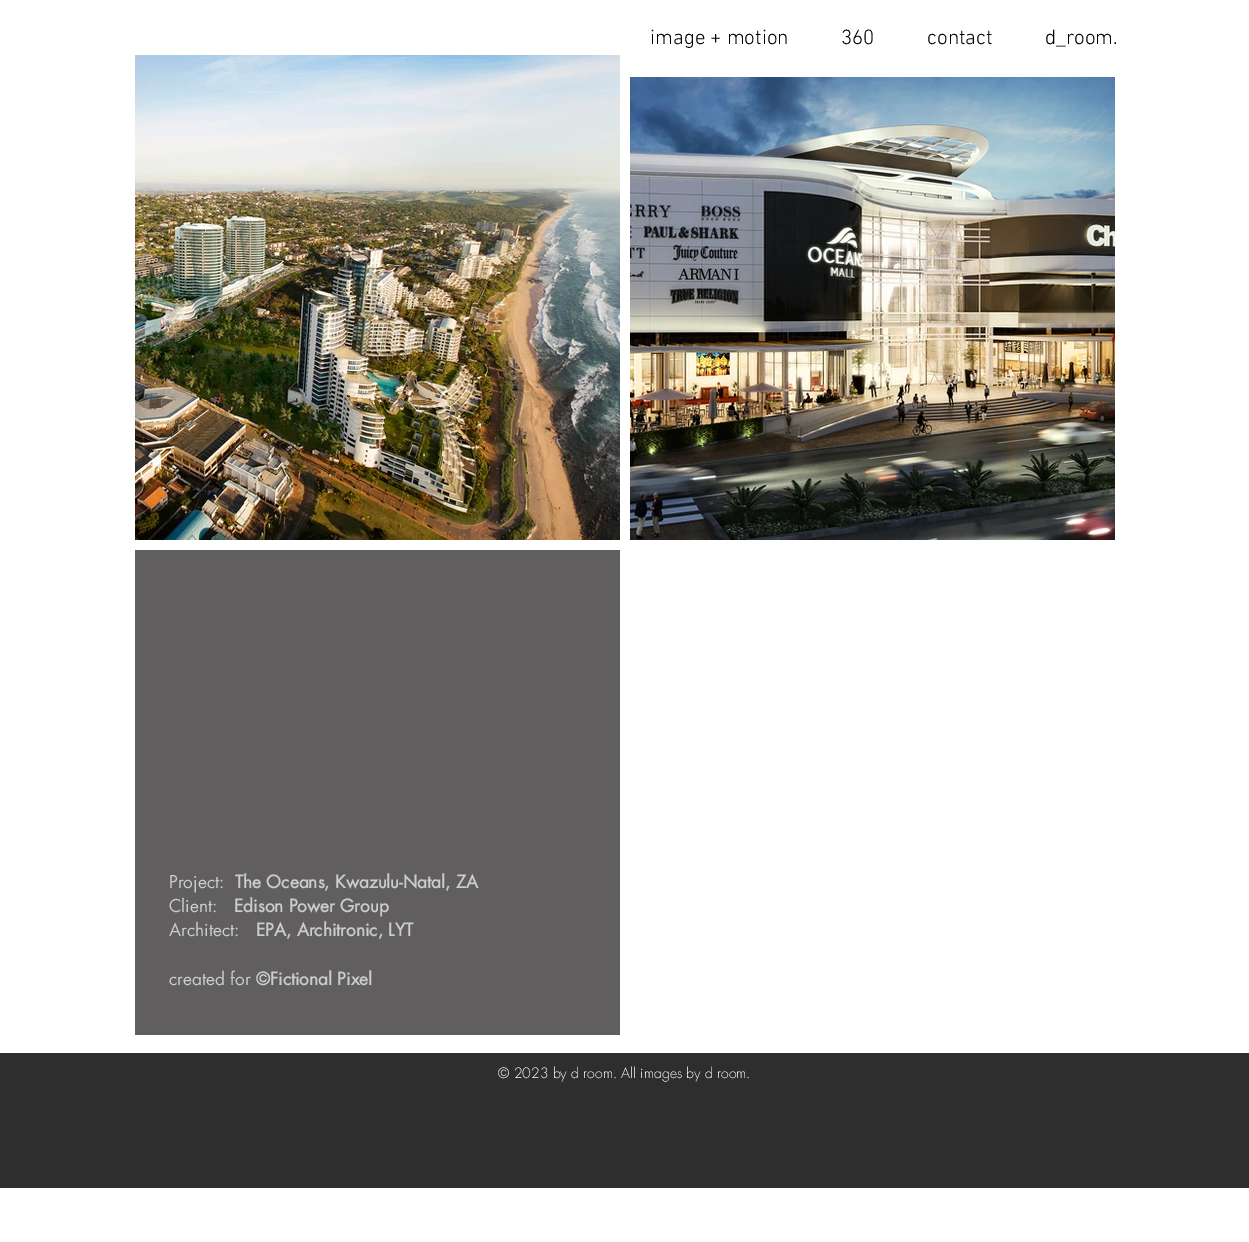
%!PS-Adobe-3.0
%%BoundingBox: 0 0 1249 1242
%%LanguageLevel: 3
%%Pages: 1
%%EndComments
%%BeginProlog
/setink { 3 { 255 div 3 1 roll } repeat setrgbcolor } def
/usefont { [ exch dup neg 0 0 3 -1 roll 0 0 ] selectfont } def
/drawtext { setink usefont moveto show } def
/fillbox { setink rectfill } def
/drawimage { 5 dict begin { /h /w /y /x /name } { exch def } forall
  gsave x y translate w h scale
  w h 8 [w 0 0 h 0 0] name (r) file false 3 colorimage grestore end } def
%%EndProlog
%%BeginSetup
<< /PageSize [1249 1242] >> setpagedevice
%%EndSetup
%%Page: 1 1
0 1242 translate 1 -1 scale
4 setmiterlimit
0 0 1249 1242 255 255 255 fillbox
(image + motion) 650 44 /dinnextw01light-Light 21 0 0 0 drawtext
(360) 841 44 /dinnextw01light-Light 21 0 0 0 drawtext
(contact) 927 44 /dinnextw01light-Light 21 0 0 0 drawtext
(d_room.) 1045 44 /dinnextw01light-Light 21 0 0 0 drawtext
(assets/img1.rgb) 135 55 485 485 drawimage
(assets/img2.rgb) 630 77 485 463 drawimage
135 550 485 485 96 94 94 fillbox
(Project:) 169 888 /futura-Regular 17.25 204 204 204 drawtext
(The Oceans, Kwazulu-Natal, ZA) 235 888 /futura-Bold 17.25 204 204 204 drawtext
(Client:) 169 912 /futura-Regular 17.25 204 204 204 drawtext
(Edison Power Group) 234 912 /futura-Bold 17.25 204 204 204 drawtext
(Architect:) 169 936 /futura-Regular 17.25 204 204 204 drawtext
(EPA, Architronic, LYT) 256 936 /futura-Bold 17.25 204 204 204 drawtext
(created for) 169 985 /futura-Regular 17.25 204 204 204 drawtext
(©Fictional Pixel) 256 985 /futura-Bold 17.25 204 204 204 drawtext
0 1053 1249 135 47 46 46 fillbox
(© 2023 by d room. All images by d room.) 498 1078 /futura-Light 14 255 255 255 drawtext
showpage
%%EOF
